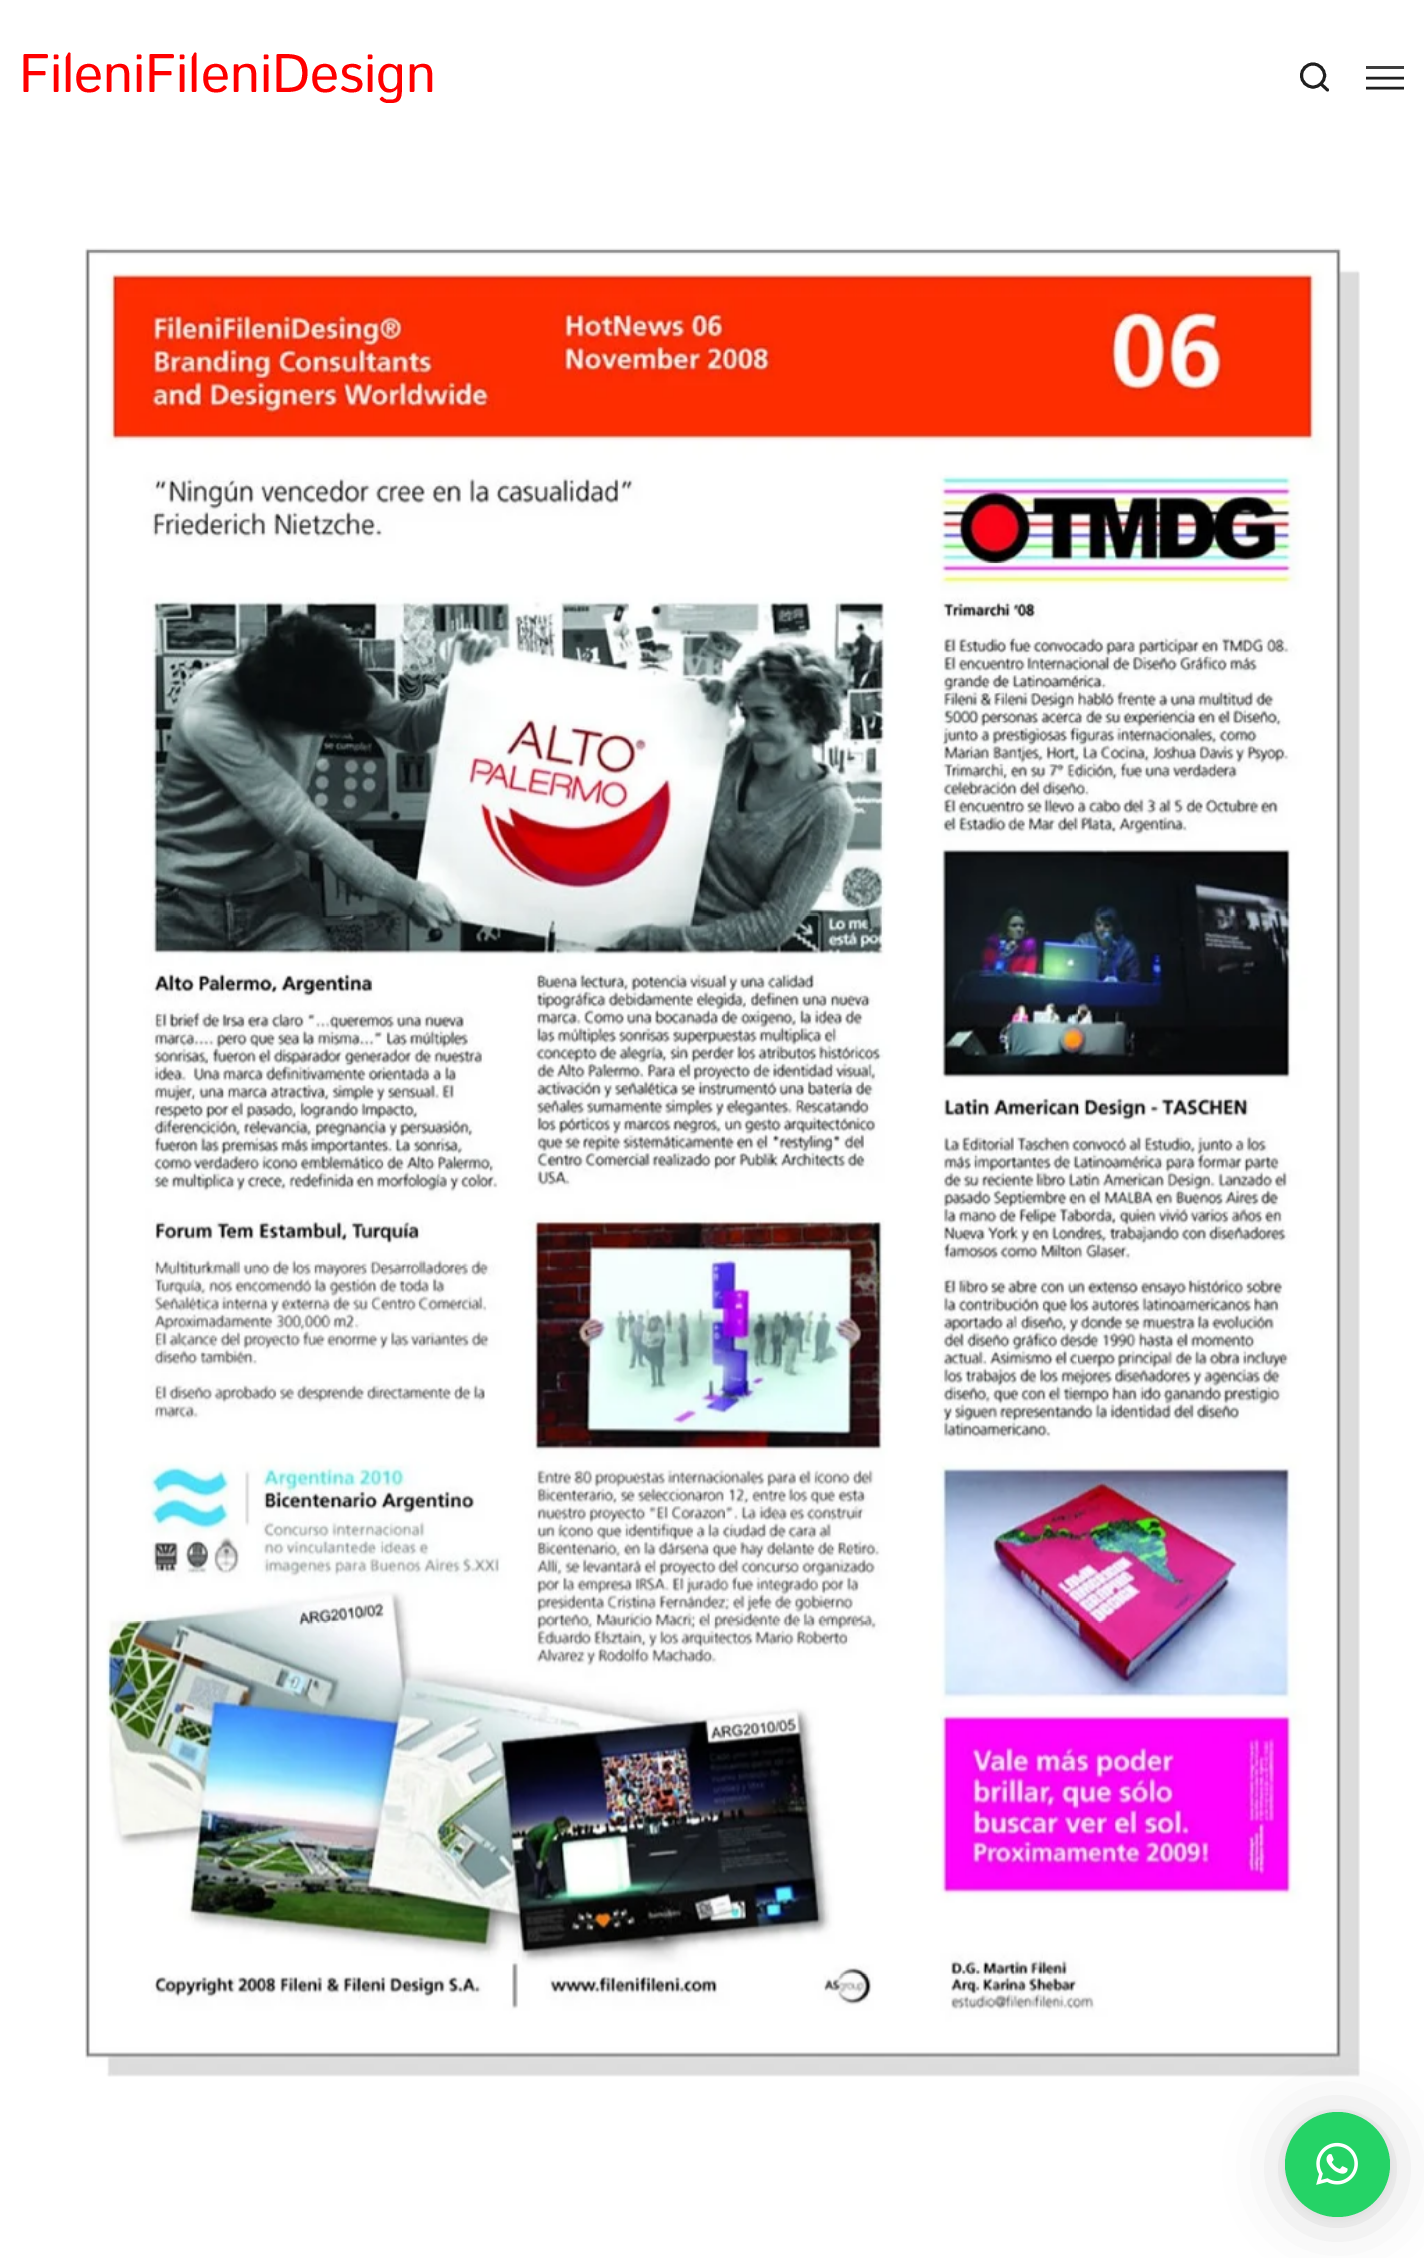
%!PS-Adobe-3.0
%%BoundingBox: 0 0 1424 2258
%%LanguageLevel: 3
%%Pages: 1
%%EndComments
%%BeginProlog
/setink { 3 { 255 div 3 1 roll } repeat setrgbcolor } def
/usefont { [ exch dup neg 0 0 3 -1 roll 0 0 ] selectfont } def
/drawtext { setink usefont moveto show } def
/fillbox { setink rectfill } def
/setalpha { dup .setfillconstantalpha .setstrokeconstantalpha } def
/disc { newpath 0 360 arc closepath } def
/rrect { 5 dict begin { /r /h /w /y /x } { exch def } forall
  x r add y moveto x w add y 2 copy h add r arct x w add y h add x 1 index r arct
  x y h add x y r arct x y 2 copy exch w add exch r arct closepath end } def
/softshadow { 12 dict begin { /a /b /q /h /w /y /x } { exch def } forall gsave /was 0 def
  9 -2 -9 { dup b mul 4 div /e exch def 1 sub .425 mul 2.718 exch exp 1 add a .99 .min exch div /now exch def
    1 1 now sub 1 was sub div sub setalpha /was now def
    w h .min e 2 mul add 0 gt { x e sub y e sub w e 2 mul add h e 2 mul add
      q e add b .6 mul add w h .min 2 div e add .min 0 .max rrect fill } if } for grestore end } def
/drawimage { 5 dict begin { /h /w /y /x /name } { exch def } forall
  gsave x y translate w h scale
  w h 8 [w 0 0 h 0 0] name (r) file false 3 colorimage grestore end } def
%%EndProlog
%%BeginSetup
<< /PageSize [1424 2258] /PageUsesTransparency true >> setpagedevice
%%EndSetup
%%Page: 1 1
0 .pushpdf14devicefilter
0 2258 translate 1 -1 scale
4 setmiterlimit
0 0 1424 2258 255 255 255 fillbox
(FileniFileniDesign) 19 92 /IstokWeb-Regular 54.25 255 0 0 drawtext
32 32 32 setink
2.9 setlinewidth
1313 75.5 11.5 disc stroke
1 setlinecap
1 setlinejoin
1327.5 90 moveto 1321 84 lineto stroke
1366 66 38 3 62 62 62 fillbox
32 32 32 setink
2.6 setlinewidth
0 setlinecap
0 setlinejoin
1366 88 moveto 1404 88 lineto 1366 78 moveto 1404 78 lineto stroke
(assets/img1.rgb) 85 248 1275 1829 drawimage
0 0 0 setink
1285 2116 105 105 52.5 28 0.16 softshadow
1285 2114 105 105 52.5 5 0.06 softshadow
37 211 102 setink
1337.5 2164.5 52.5 disc fill
(assets/img2.rgb) 1316 2142 42 43 drawimage
.poppdf14devicefilter showpage
%%EOF
